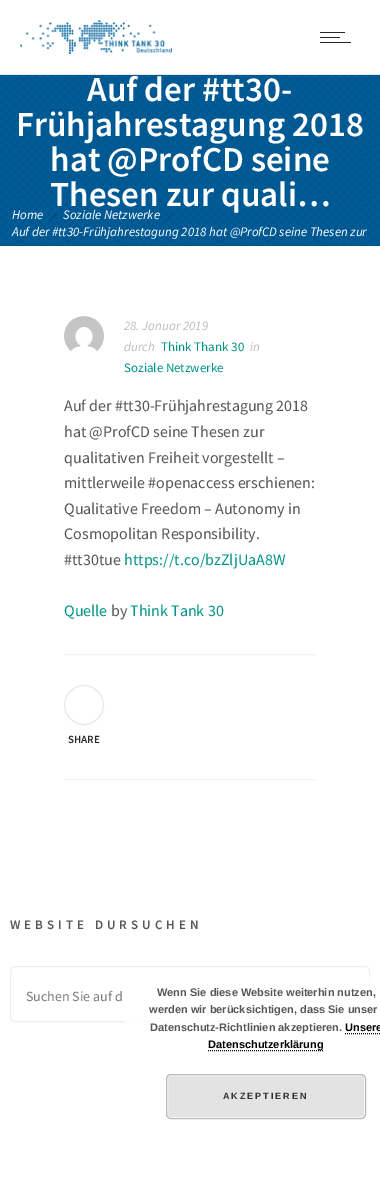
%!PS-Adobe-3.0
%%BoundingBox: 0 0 380 1177
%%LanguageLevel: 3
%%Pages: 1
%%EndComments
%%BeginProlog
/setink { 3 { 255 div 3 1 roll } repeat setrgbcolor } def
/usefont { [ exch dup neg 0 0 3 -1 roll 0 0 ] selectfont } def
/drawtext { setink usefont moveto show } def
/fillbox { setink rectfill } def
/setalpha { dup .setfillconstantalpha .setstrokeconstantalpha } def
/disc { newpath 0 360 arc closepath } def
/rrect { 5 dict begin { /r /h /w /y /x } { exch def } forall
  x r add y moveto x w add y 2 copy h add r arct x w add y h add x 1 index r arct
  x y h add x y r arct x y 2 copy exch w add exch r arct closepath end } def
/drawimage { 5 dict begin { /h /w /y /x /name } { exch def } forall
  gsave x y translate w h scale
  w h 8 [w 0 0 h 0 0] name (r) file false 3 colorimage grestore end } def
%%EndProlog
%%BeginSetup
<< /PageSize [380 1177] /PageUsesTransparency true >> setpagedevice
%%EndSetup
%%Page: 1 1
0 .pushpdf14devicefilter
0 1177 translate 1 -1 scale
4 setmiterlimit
0 0 380 1177 255 255 255 fillbox
0 74 380 1 234 233 234 fillbox
(assets/img1.rgb) 20 20 152 34 drawimage
320 32 25 1 40 38 43 fillbox
320 37 20 1 40 38 43 fillbox
320 42 31 1 40 38 43 fillbox
(assets/img2.rgb) 0 75 380 171 drawimage
0.1 setalpha
0 245 380 1 27 27 27 fillbox
1 setalpha
(Auf der #tt30-) 87 101 /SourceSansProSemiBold-SemiBold 35 255 255 255 drawtext
(Frühjahrestagung 2018) 16 136 /SourceSansProSemiBold-SemiBold 35 255 255 255 drawtext
(hat @ProfCD seine) 50 171 /SourceSansProSemiBold-SemiBold 35 255 255 255 drawtext
(Thesen zur quali…) 50 206 /SourceSansProSemiBold-SemiBold 35 255 255 255 drawtext
(Home) 12 219 /SourceSansPro-Italic 13 255 255 255 drawtext
0.4 setalpha
40 38 43 setink
56 213.5 moveto 57 214 lineto 49.5 221 lineto 49 220.5 lineto closepath fill
1 setalpha
(Soziale Netzwerke) 63 219 /SourceSansPro-Italic 13 255 255 255 drawtext
0.4 setalpha
40 38 43 setink
173 213.5 moveto 173.5 214 lineto 166.5 221 lineto 166 220.5 lineto closepath fill
1 setalpha
(Auf der #tt30-Frühjahrestagung 2018 hat @ProfCD seine Thesen zur) 12 236 /SourceSansPro-Italic 13 255 255 255 drawtext
(assets/img3.rgb) 64 316 40 36 drawimage
(28. Januar 2019) 124 330 /SourceSansPro-Italic 13 188 188 188 drawtext
(durch) 124 351 /SourceSansPro-Italic 13 188 188 188 drawtext
(Think Thank 30) 161 351 /SourceSansPro-Regular 13 0 148 136 drawtext
(in) 250 351 /SourceSansPro-Italic 13 188 188 188 drawtext
(Soziale Netzwerke) 124 372 /SourceSansPro-Regular 13 0 148 136 drawtext
(Auf der #tt30-Frühjahrestagung 2018) 64 411 /SourceSansPro-Regular 16 86 86 86 drawtext
(hat @ProfCD seine Thesen zur) 64 437 /SourceSansPro-Regular 16 86 86 86 drawtext
(qualitativen Freiheit vorgestellt –) 64 463 /SourceSansPro-Regular 16 86 86 86 drawtext
(mittlerweile #openaccess erschienen:) 64 488 /SourceSansPro-Regular 16 86 86 86 drawtext
(Qualitative Freedom – Autonomy in) 64 514 /SourceSansPro-Regular 16 86 86 86 drawtext
(Cosmopolitan Responsibility.) 64 539 /SourceSansPro-Regular 16 86 86 86 drawtext
(#tt30tue) 64 565 /SourceSansPro-Regular 16 86 86 86 drawtext
(https://t.co/bzZljUaA8W) 124 565 /SourceSansPro-Regular 16 0 148 136 drawtext
(Quelle) 64 616 /SourceSansPro-Regular 16 0 148 136 drawtext
(by) 111 616 /SourceSansPro-Regular 16 86 86 86 drawtext
(Think Tank 30) 130 616 /SourceSansPro-Regular 16 0 148 136 drawtext
232 232 232 setink
[1 1] 0 setdash
64 654.5 moveto 316 654.5 lineto stroke
64 779.5 moveto 316 779.5 lineto stroke
[] 0 setdash
84 705 19.5 disc stroke
(SHARE) 68 743 /SourceSansProSemiBold-SemiBold 11 40 38 43 drawtext
/SourceSansProSemiBold-SemiBold 13 usefont
86 86 86 setink
10 929 moveto 4 0 (WEBSITE DURSUCHEN) ashow
237 237 237 setink
10.5 966.5 359 55 4.5 rrect stroke
(Suchen Sie auf d) 26 1001 /SourceSansPro-Regular 14 120 120 120 drawtext
0.85 setalpha
255 255 255 setink
125 976 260 171 5 rrect fill
1 setalpha
(Wenn Sie diese Website weiterhin nutzen,) 157 996 /LiberationSans-Bold 11 86 86 86 drawtext
(werden wir berücksichtigen, dass Sie unser) 149 1013 /LiberationSans-Bold 11 86 86 86 drawtext
(Datenschutz-Richtlinien akzeptieren.) 150 1031 /LiberationSans-Bold 11 86 86 86 drawtext
(Unsere) 345 1031 /LiberationSans-Bold 11 0 0 0 drawtext
[1 1] 0 setdash
345 1033.5 moveto 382 1033.5 lineto stroke
208 1050.5 moveto 324 1050.5 lineto stroke
(Datenschutzerklärung) 208 1048 /LiberationSans-Bold 11 0 0 0 drawtext
227 227 227 setink
166 1074 200 45 5 rrect fill
246 246 246 setink
[] 0 setdash
167.5 1075.5 197 42 3.5 rrect stroke
187 187 187 setink
166.5 1074.5 199 44 4.5 rrect stroke
/LiberationSans-Bold 9 usefont
51 51 51 setink
223 1099 moveto 2 0 (AKZEPTIEREN) ashow
.poppdf14devicefilter showpage
%%EOF
